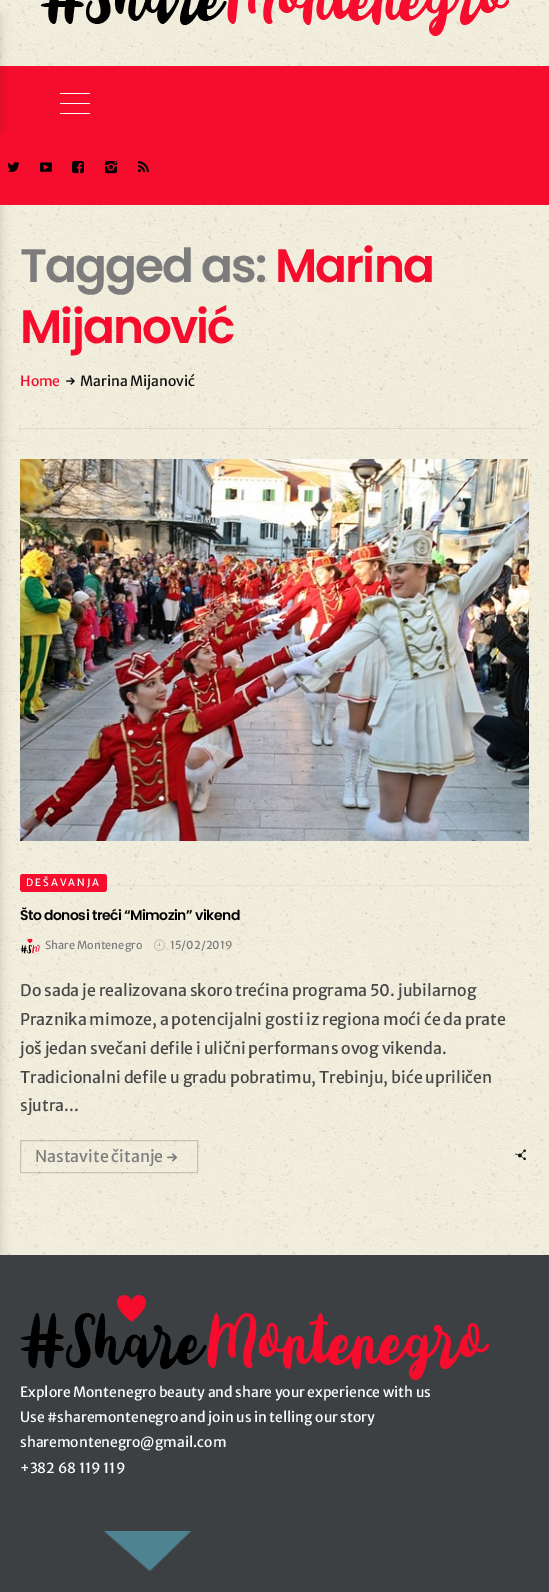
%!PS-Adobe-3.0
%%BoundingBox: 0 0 549 1592
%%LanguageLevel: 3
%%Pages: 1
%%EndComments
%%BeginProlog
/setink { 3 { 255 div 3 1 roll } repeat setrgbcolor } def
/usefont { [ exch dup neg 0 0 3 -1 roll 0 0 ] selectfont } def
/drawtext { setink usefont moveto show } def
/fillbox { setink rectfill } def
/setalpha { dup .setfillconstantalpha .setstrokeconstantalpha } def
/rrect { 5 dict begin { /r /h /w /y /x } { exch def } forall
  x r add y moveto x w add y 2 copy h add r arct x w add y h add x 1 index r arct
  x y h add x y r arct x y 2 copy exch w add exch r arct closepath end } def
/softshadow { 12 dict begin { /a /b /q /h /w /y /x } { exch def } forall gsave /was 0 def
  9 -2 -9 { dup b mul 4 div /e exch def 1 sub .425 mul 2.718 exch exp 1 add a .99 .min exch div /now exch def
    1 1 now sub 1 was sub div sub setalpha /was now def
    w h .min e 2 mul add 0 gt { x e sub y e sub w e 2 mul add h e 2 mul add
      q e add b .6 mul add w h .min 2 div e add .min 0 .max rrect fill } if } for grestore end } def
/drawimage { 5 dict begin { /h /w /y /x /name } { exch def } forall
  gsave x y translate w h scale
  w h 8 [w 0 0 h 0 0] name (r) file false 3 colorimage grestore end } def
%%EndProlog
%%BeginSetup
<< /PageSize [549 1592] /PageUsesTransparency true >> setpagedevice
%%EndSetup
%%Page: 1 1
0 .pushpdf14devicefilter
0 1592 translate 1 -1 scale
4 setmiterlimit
0 0 549 1592 255 255 255 fillbox
(assets/img1.rgb) 0 0 549 1255 drawimage
0 66 549 68 246 12 45 fillbox
(assets/img8.rgb) 0 205 549 1010 drawimage
30 30 30 setink
-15 15 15 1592 0 5 0.2 softshadow
255 255 255 setink
60 93 30 1 0.5 rrect fill
60 103 30 1 255 255 255 fillbox
60 113 30 1 255 255 255 fillbox
0 134 549 71 246 12 45 fillbox
(assets/img2.rgb) 7 162 13 11 drawimage
(assets/img3.rgb) 40 162 12 10 drawimage
(assets/img4.rgb) 72 161 12 13 drawimage
(assets/img5.rgb) 105 161 13 13 drawimage
(assets/img6.rgb) 138 161 11 12 drawimage
(assets/img7.rgb) 40 0 469 36 drawimage
0.08 setalpha
20 428 509 1 0 0 0 fillbox
/Poppins-SemiBold 47 usefont
1 setalpha
124 124 124 setink
20 282 moveto -1.9 0 (Tagged as:) ashow
246 12 45 setink
275 282 moveto -1.9 0 (Marina) ashow
20 343 moveto -1.9 0 (Mijanović) ashow
(Home) 20 386 /MerriweatherSans-Regular 14 246 12 45 drawtext
(assets/img9.rgb) 66 377 9 8 drawimage
(Marina Mijanović) 80 386 /MerriweatherSans-Regular 14 17 17 17 drawtext
(assets/img10.rgb) 20 459 509 382 drawimage
246 12 45 setink
20 874 87 18 3 rrect fill
/MerriweatherSans-Regular 10 usefont
255 255 255 setink
26 886 moveto 2 0 (DEŠAVANJA) ashow
0.05 setalpha
107 885 422 1 30 30 30 fillbox
/Poppins-SemiBold 14 usefont
1 setalpha
0 0 0 setink
20 920 moveto -0.55 0 (Što donosi treći “Mimozin” vikend) ashow
(assets/img11.rgb) 20 938 20 16 drawimage
(Share Montenegro) 45 949 /MerriweatherSans-Regular 11 124 124 124 drawtext
(assets/img12.rgb) 154 939 11 12 drawimage
(15/02/2019) 170 949 /MerriweatherSans-Regular 11 124 124 124 drawtext
(Do sada je realizovana skoro trećina programa 50. jubilarnog) 20 996 /MerriweatherSans-Regular 16 71 71 71 drawtext
(Praznika mimoze, a potencijalni gosti iz regiona moći će da prate) 20 1025 /MerriweatherSans-Regular 16 71 71 71 drawtext
(još jedan svečani defile i ulični performans ovog vikenda.) 20 1054 /MerriweatherSans-Regular 16 71 71 71 drawtext
(Tradicionalni defile u gradu pobratimu, Trebinju, biće upriličen) 20 1083 /MerriweatherSans-Regular 16 71 71 71 drawtext
(sjutra...) 20 1111 /MerriweatherSans-Regular 16 71 71 71 drawtext
0.2 setalpha
30 30 30 setink
20.5 1140.5 177 32 rectstroke
1 setalpha
(Nastavite čitanje) 35 1162 /MerriweatherSans-Regular 16 124 124 124 drawtext
(assets/img13.rgb) 167 1153 11 9 drawimage
(assets/img14.rgb) 515 1149 11 12 drawimage
0 1255 549 337 61 64 67 fillbox
(assets/img15.rgb) 20 1295 469 85 drawimage
(Explore Montenegro beauty and share your experience with us) 20 1397 /MerriweatherSans-Regular 14 255 255 255 drawtext
(Use #sharemontenegro and join us in telling our story) 20 1422 /MerriweatherSans-Regular 14 255 255 255 drawtext
(sharemontenegro@gmail.com) 20 1447 /MerriweatherSans-Regular 14 255 255 255 drawtext
(+382 68 119 119) 20 1473 /MerriweatherSans-Regular 14 255 255 255 drawtext
(assets/img16.rgb) 104 1531 88 41 drawimage
.poppdf14devicefilter showpage
%%EOF
